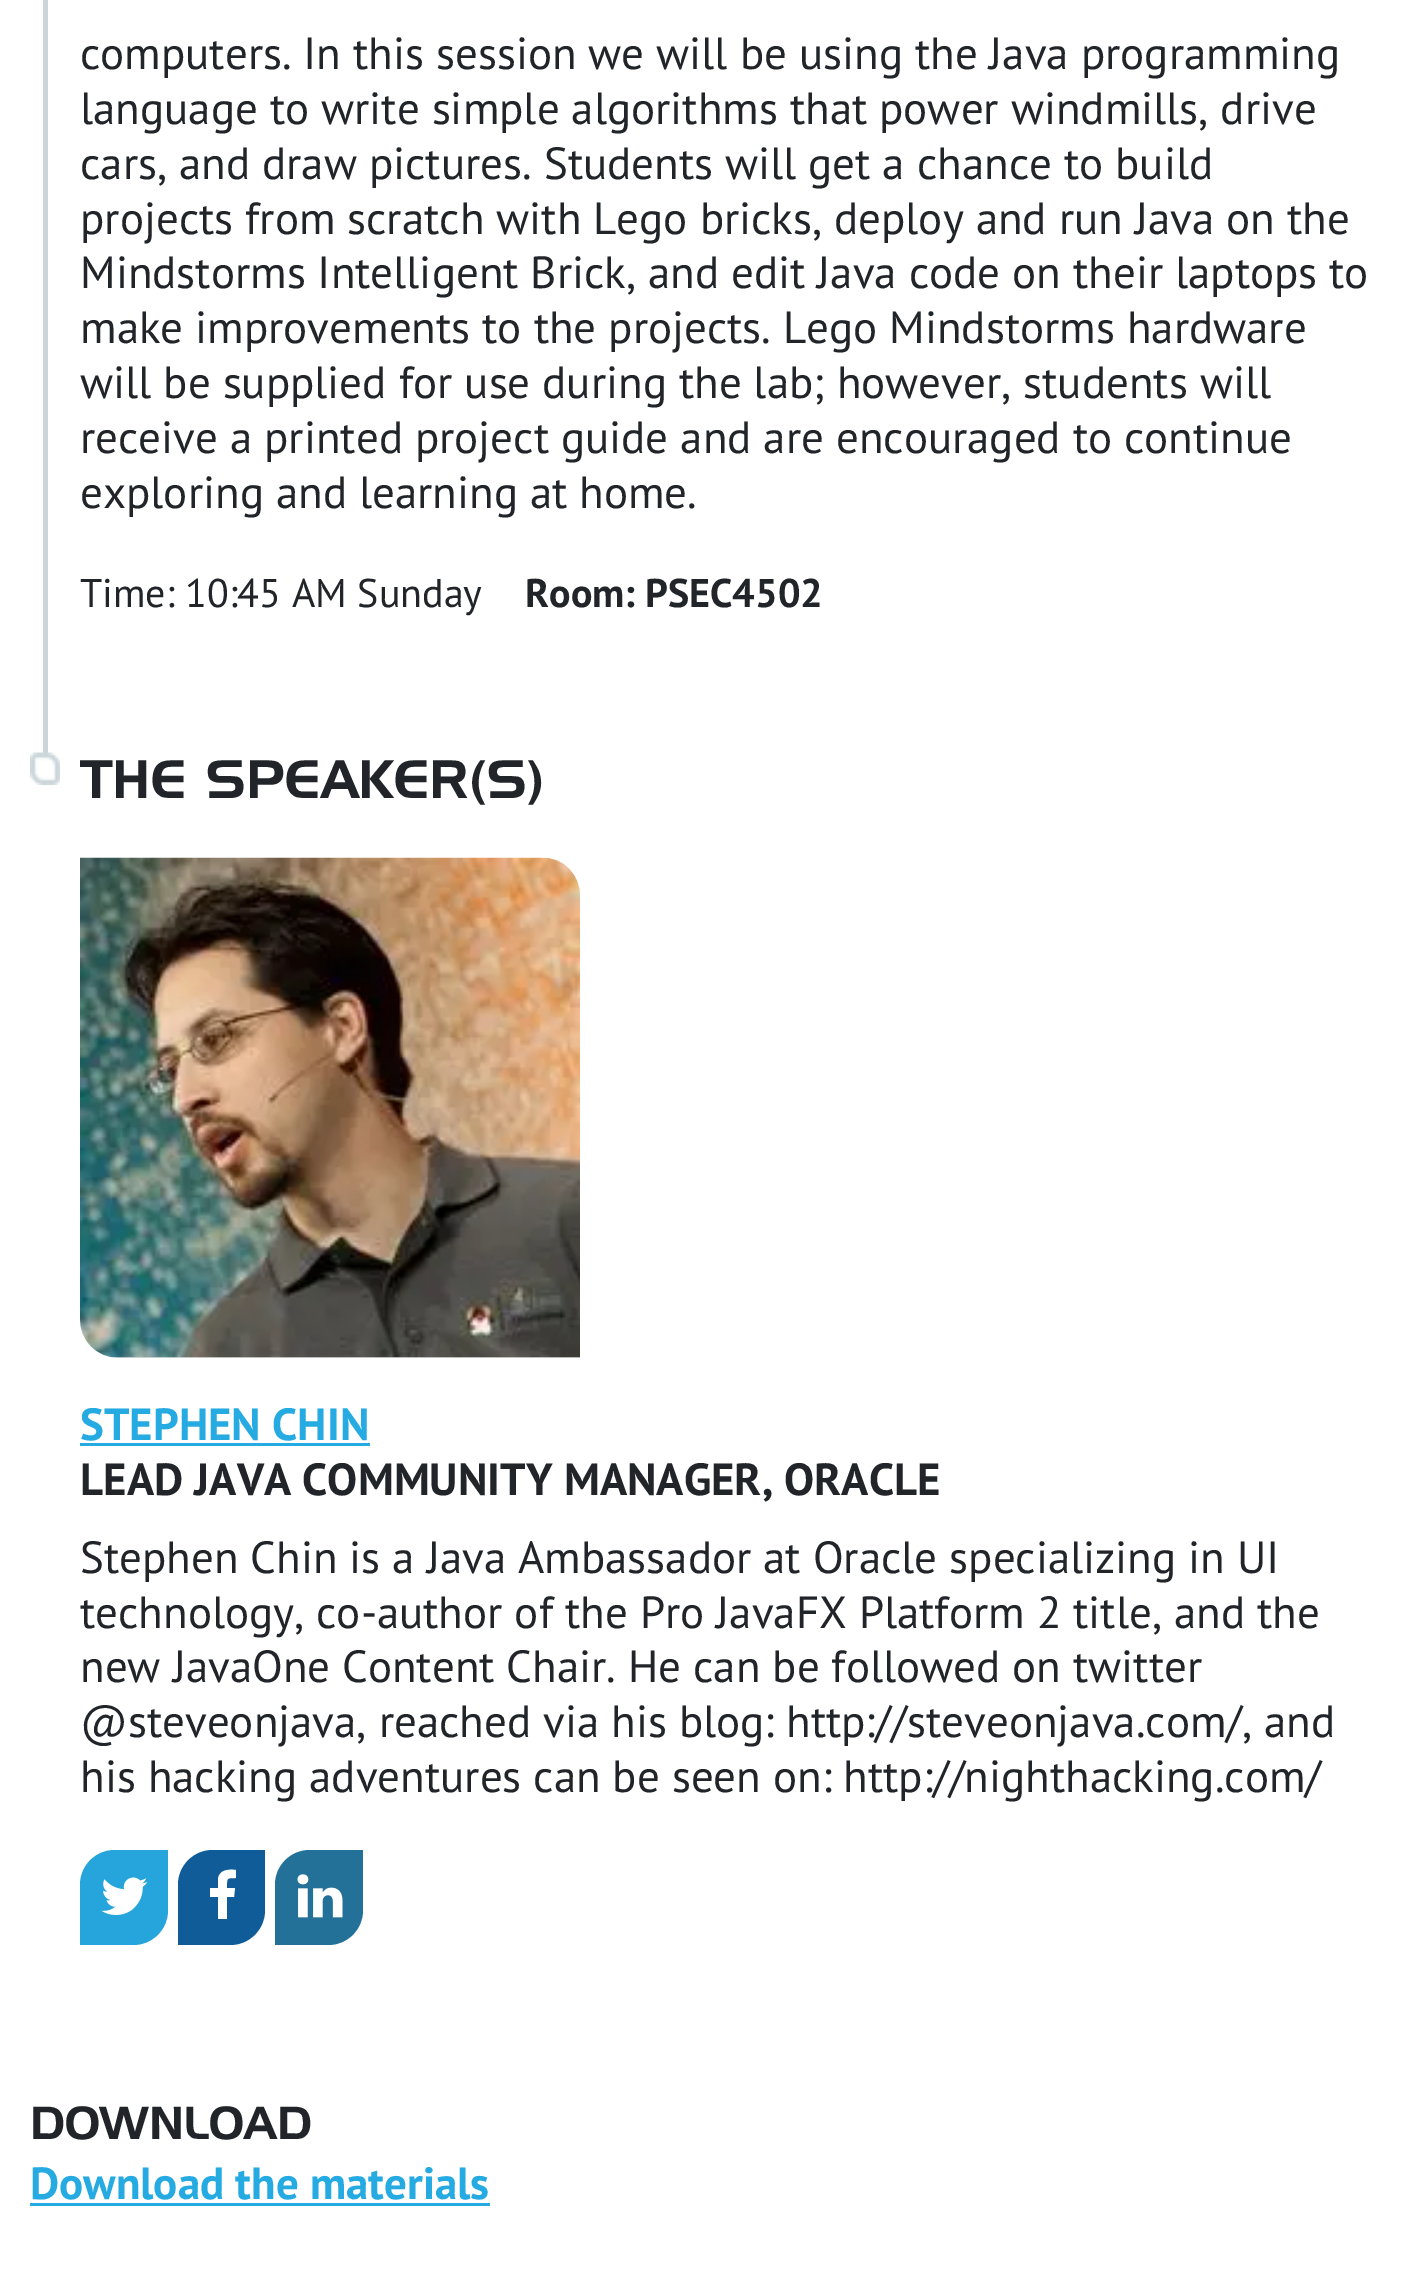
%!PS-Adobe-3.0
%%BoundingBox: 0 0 1405 2281
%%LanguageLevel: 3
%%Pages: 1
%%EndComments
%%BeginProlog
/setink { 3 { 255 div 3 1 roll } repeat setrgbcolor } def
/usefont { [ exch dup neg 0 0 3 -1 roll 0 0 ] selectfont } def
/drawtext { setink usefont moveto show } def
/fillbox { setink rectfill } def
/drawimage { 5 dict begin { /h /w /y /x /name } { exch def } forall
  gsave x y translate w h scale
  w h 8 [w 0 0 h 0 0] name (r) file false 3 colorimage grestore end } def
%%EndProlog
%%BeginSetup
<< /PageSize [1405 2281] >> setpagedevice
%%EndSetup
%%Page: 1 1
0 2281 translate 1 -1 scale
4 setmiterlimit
0 0 1405 2281 255 255 255 fillbox
43 0 5 753 203 214 218 fillbox
(computers. In this session we will be using the Java programming) 80 69 /PTSans-Regular 45 33 37 41 drawtext
(language to write simple algorithms that power windmills, drive) 80 124 /PTSans-Regular 45 33 37 41 drawtext
(cars, and draw pictures. Students will get a chance to build) 80 179 /PTSans-Regular 45 33 37 41 drawtext
(projects from scratch with Lego bricks, deploy and run Java on the) 80 234 /PTSans-Regular 45 33 37 41 drawtext
(Mindstorms Intelligent Brick, and edit Java code on their laptops to) 80 288 /PTSans-Regular 45 33 37 41 drawtext
(make improvements to the projects. Lego Mindstorms hardware) 80 343 /PTSans-Regular 45 33 37 41 drawtext
(will be supplied for use during the lab; however, students will) 80 398 /PTSans-Regular 45 33 37 41 drawtext
(receive a printed project guide and are encouraged to continue) 80 453 /PTSans-Regular 45 33 37 41 drawtext
(exploring and learning at home.) 80 508 /PTSans-Regular 45 33 37 41 drawtext
(Time: 10:45 AM Sunday) 80 607 /PTSans-Regular 40 33 37 41 drawtext
(Room: PSEC4502) 525 607 /PTSans-Bold 40 33 37 41 drawtext
(assets/img1.rgb) 30 752 30 33 drawimage
(THE SPEAKER\(S\)) 80 798 /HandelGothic-Medium 52.5 33 37 41 drawtext
225 225 226 setink
80 858 moveto 542 858 lineto 563 858 580 875 580 896 curveto 580 1358 lineto 118 1358 lineto 97 1358 80 1341 80 1320 curveto closepath fill
(assets/img2.rgb) 80 857 500 501 drawimage
(STEPHEN CHIN) 80 1440 /PTSans-Bold 45 37 170 226 drawtext
80 1443 290 3 37 170 226 fillbox
(LEAD JAVA COMMUNITY MANAGER, ORACLE) 80 1495 /PTSans-Bold 45 33 37 41 drawtext
(Stephen Chin is a Java Ambassador at Oracle specializing in UI) 80 1573 /PTSans-Regular 45 33 37 41 drawtext
(technology, co-author of the Pro JavaFX Platform 2 title, and the) 80 1628 /PTSans-Regular 45 33 37 41 drawtext
(new JavaOne Content Chair. He can be followed on twitter) 80 1682 /PTSans-Regular 45 33 37 41 drawtext
(@steveonjava, reached via his blog: http://steveonjava.com/, and) 80 1737 /PTSans-Regular 45 33 37 41 drawtext
(his hacking adventures can be seen on: http://nighthacking.com/) 80 1792 /PTSans-Regular 45 33 37 41 drawtext
37 165 219 setink
115 1850 moveto 168 1850 lineto 168 1910 lineto 168 1929.5 152.5 1945 133 1945 curveto 80 1945 lineto 80 1885 lineto 80 1865.5 95.5 1850 115 1850 curveto closepath fill
(assets/img3.rgb) 101 1877 47 38 drawimage
15 92 152 setink
213 1850 moveto 265 1850 lineto 265 1910 lineto 265 1929.5 249.5 1945 230 1945 curveto 178 1945 lineto 178 1885 lineto 178 1865.5 193.5 1850 213 1850 curveto closepath fill
255 255 255 setink
236 1870 moveto 236 1878 lineto 226 1878 227 1878 227 1888 curveto 235 1888 lineto 234 1897 lineto 227 1897 lineto 227 1919 lineto 218 1919 lineto 218 1897 lineto 210 1897 lineto 210 1888 lineto 218 1888 lineto 218 1879 lineto 219 1870 228 1869 236 1870 curveto closepath fill
35 113 153 setink
310 1850 moveto 363 1850 lineto 363 1910 lineto 363 1929.5 347.5 1945 328 1945 curveto 275 1945 lineto 275 1885 lineto 275 1865.5 290.5 1850 310 1850 curveto closepath fill
(assets/img4.rgb) 297 1874 46 44 drawimage
(DOWNLOAD) 30 2139 /HandelGothic-Medium 45 33 37 41 drawtext
(Download the materials) 30 2199 /PTSans-Bold 45 37 170 226 drawtext
30 2203 460 3 37 170 226 fillbox
showpage
%%EOF
